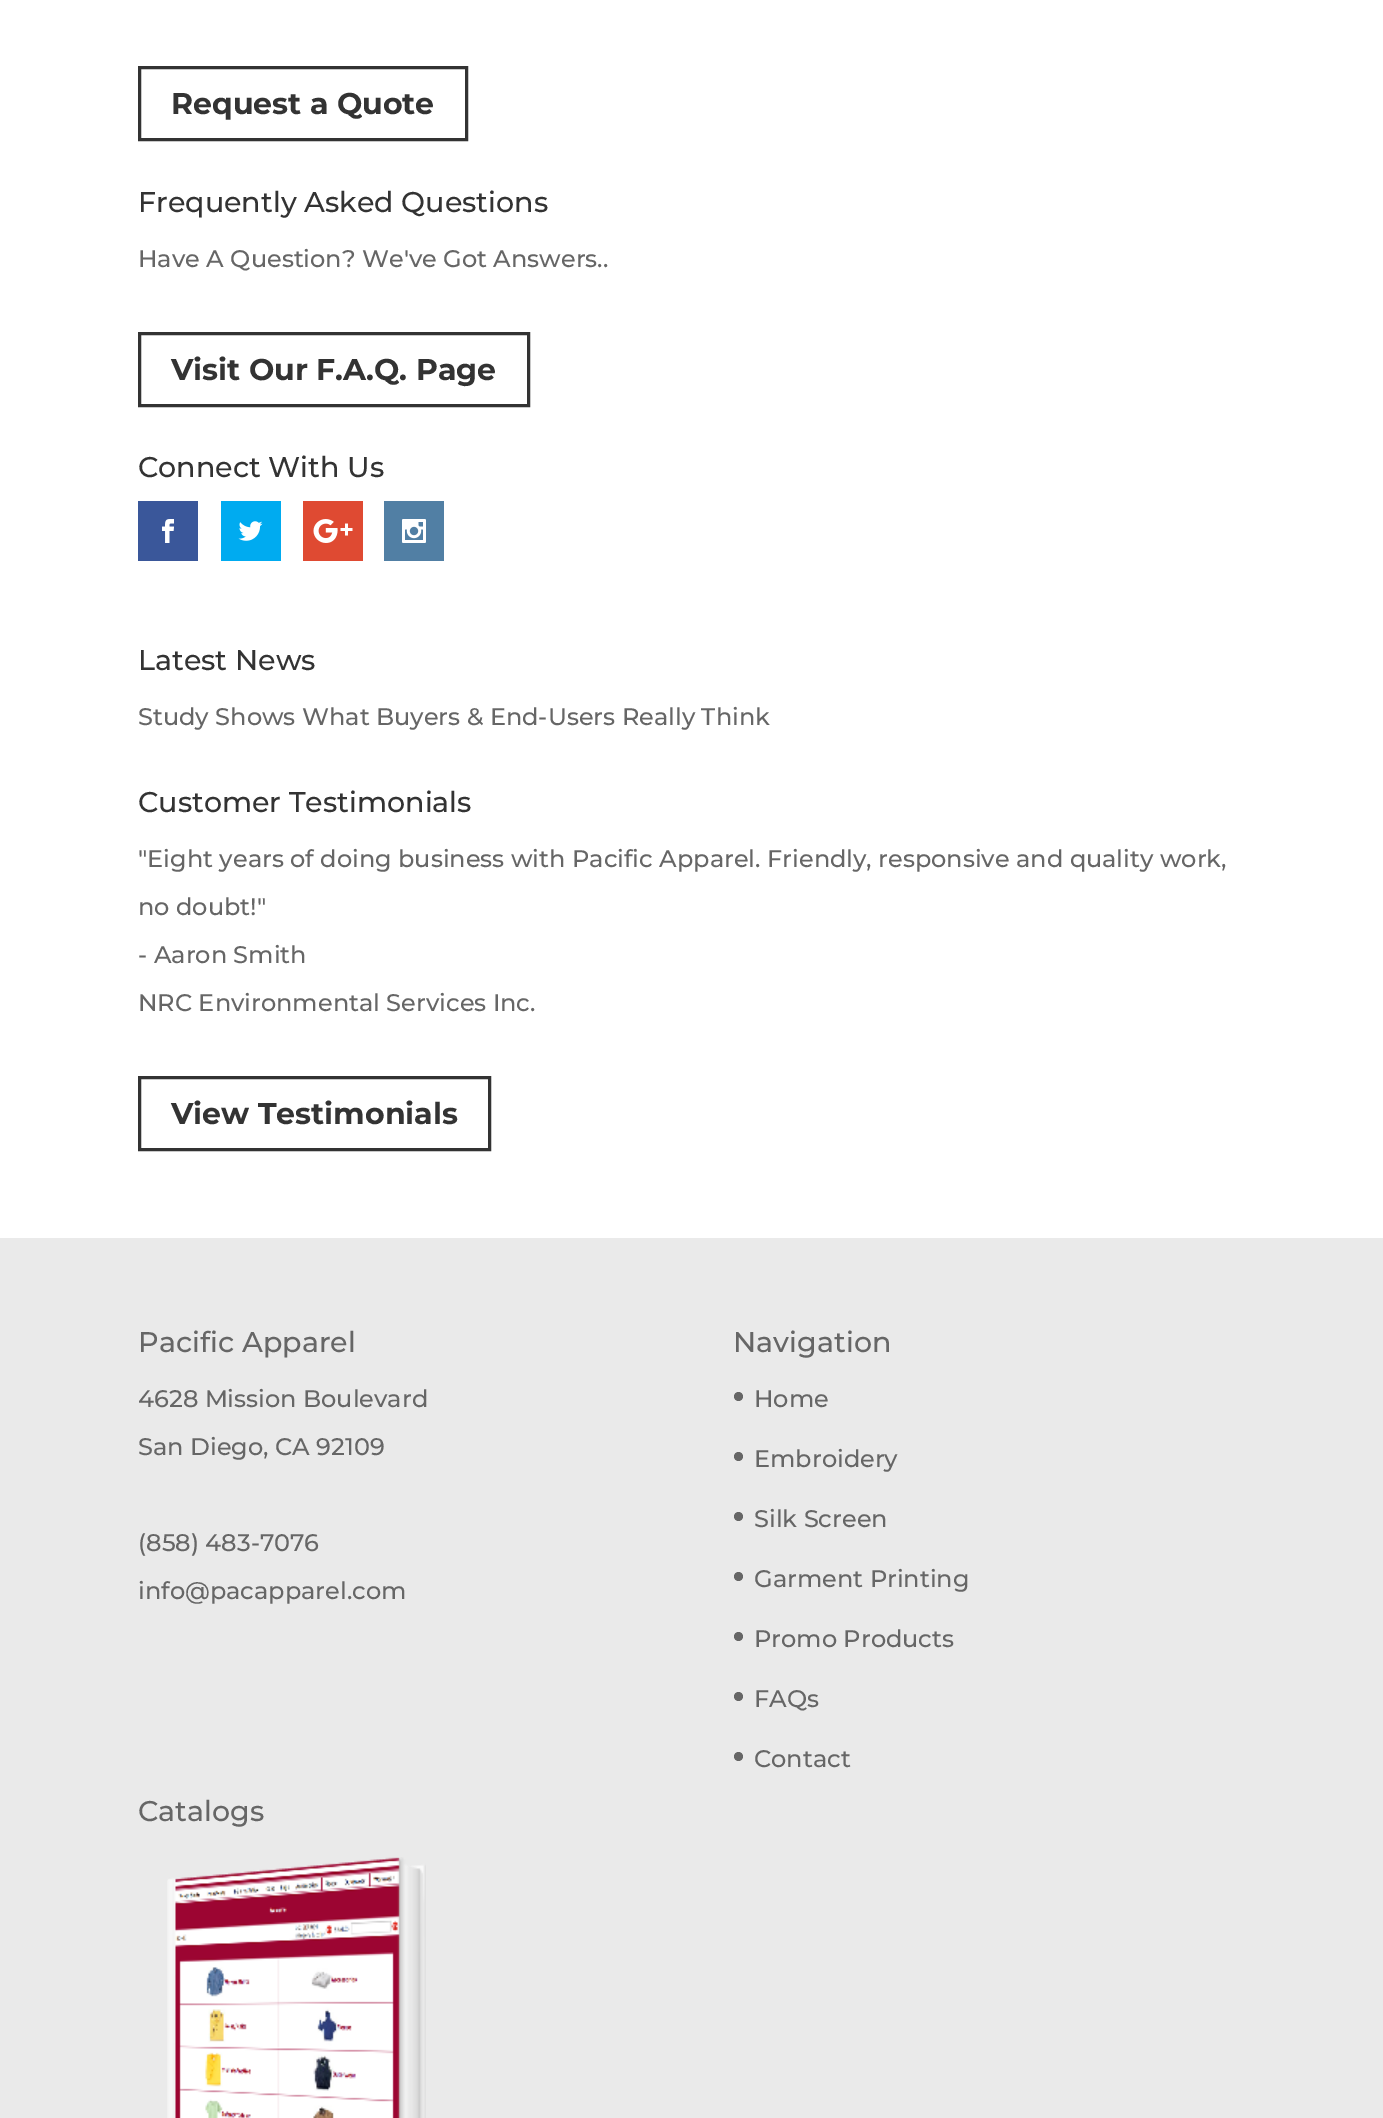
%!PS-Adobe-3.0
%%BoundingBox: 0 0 1383 2118
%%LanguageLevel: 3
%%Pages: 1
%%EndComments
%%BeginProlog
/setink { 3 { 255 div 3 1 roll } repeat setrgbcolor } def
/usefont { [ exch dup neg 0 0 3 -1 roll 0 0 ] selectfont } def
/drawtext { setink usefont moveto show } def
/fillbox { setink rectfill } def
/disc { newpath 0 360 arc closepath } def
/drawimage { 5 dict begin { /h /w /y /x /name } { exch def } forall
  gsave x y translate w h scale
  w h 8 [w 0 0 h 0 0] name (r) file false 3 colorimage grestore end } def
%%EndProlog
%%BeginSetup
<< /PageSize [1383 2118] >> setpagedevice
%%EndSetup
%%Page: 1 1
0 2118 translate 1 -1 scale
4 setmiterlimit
0 0 1383 2118 255 255 255 fillbox
51 51 51 setink
3 setlinewidth
139.5 67.5 327 72 rectstroke
(Request a Quote) 171 114 /Montserrat-Bold 30 51 51 51 drawtext
(Frequently Asked Questions) 138 212 /Montserrat-Medium 28.5 51 51 51 drawtext
(Have A Question? We've Got Answers..) 138 267 /Montserrat-Medium 24 102 102 102 drawtext
51 51 51 setink
139.5 333.5 389 72 rectstroke
(Visit Our F.A.Q. Page) 171 380 /Montserrat-Bold 30 51 51 51 drawtext
(Connect With Us) 138 477 /Montserrat-Medium 28.5 51 51 51 drawtext
138 501 60 60 58 87 154 fillbox
(assets/img1.rgb) 162 519 12 24 drawimage
221 501 60 60 0 171 240 fillbox
(assets/img2.rgb) 238 521 25 20 drawimage
303 501 60 60 223 74 50 fillbox
(assets/img3.rgb) 313 519 40 24 drawimage
384 501 60 60 81 127 164 fillbox
(assets/img4.rgb) 402 519 24 24 drawimage
(Latest News) 138 670 /Montserrat-Medium 28.5 51 51 51 drawtext
(Study Shows What Buyers & End-Users Really Think) 138 725 /Montserrat-Medium 24 102 102 102 drawtext
(Customer Testimonials) 138 812 /Montserrat-Medium 28.5 51 51 51 drawtext
("Eight years of doing business with Pacific Apparel. Friendly, responsive and quality work,) 138 867 /Montserrat-Medium 24 102 102 102 drawtext
(no doubt!") 138 915 /Montserrat-Medium 24 102 102 102 drawtext
(- Aaron Smith) 138 963 /Montserrat-Medium 24 102 102 102 drawtext
(NRC Environmental Services Inc.) 138 1011 /Montserrat-Medium 24 102 102 102 drawtext
51 51 51 setink
139.5 1077.5 350 72 rectstroke
(View Testimonials) 171 1124 /Montserrat-Bold 30 51 51 51 drawtext
0 1238 1383 880 234 234 234 fillbox
(Pacific Apparel) 138 1352 /Montserrat-Medium 28.5 102 102 102 drawtext
(4628 Mission Boulevard) 138 1407 /Montserrat-Medium 24 102 102 102 drawtext
(San Diego, CA 92109) 138 1455 /Montserrat-Medium 24 102 102 102 drawtext
(\(858\) 483-7076) 138 1551 /Montserrat-Medium 24 102 102 102 drawtext
(info@pacapparel.com) 138 1599 /Montserrat-Medium 24 102 102 102 drawtext
(Navigation) 733 1352 /Montserrat-Medium 28.5 102 102 102 drawtext
738.5 1396.5 4.5 disc fill
(Home) 754 1407 /Montserrat-Medium 24 102 102 102 drawtext
738.5 1456.5 4.5 disc fill
(Embroidery) 754 1467 /Montserrat-Medium 24 102 102 102 drawtext
738.5 1516.5 4.5 disc fill
(Silk Screen) 754 1527 /Montserrat-Medium 24 102 102 102 drawtext
738.5 1576.5 4.5 disc fill
(Garment Printing) 754 1587 /Montserrat-Medium 24 102 102 102 drawtext
738.5 1636.5 4.5 disc fill
(Promo Products) 754 1647 /Montserrat-Medium 24 102 102 102 drawtext
738.5 1696.5 4.5 disc fill
(FAQs) 754 1707 /Montserrat-Medium 24 102 102 102 drawtext
738.5 1756.5 4.5 disc fill
(Contact) 754 1767 /Montserrat-Medium 24 102 102 102 drawtext
(Catalogs) 138 1821 /Montserrat-Medium 28.5 102 102 102 drawtext
(assets/img5.rgb) 167 1857 259 261 drawimage
showpage
%%EOF
